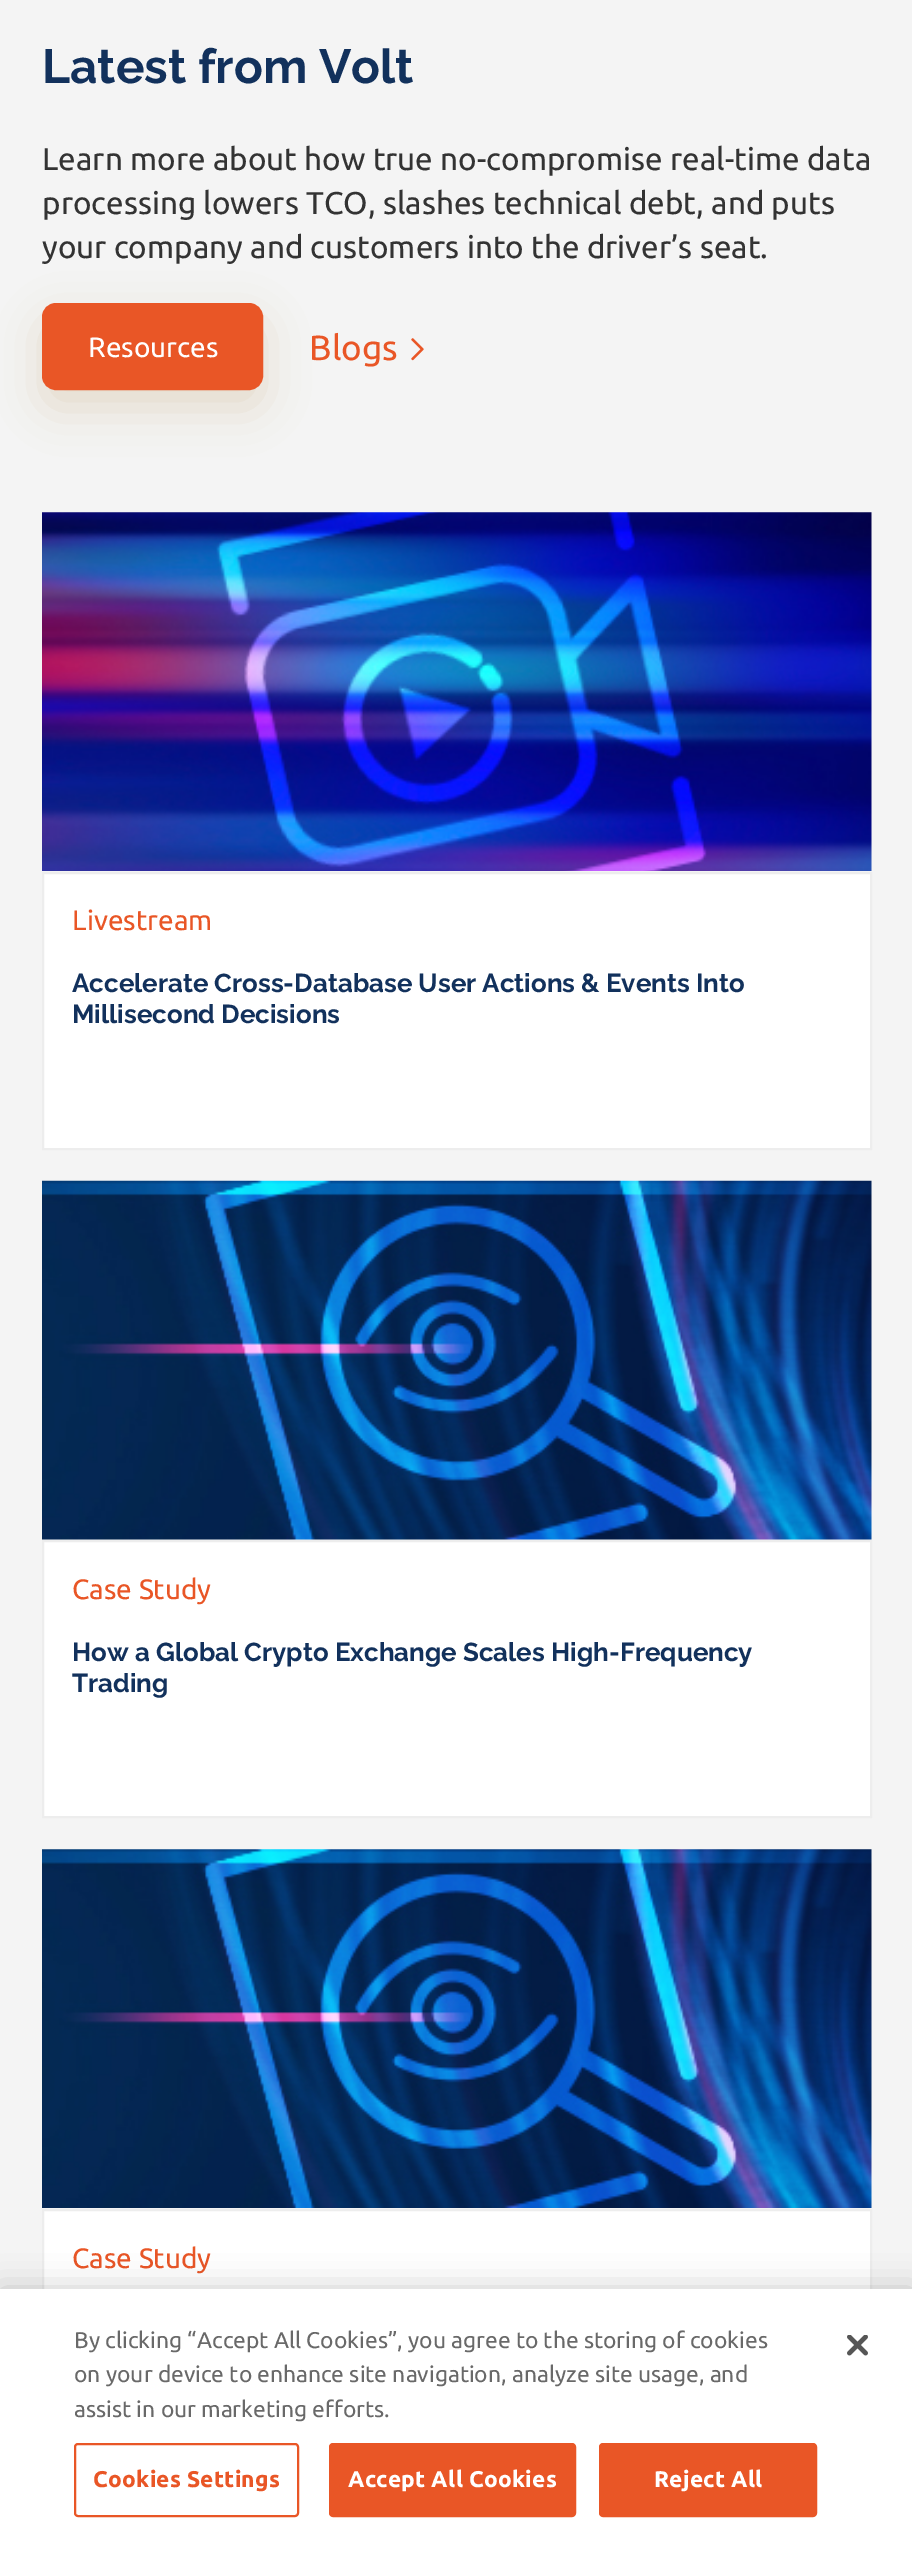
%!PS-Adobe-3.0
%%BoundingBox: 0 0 912 2549
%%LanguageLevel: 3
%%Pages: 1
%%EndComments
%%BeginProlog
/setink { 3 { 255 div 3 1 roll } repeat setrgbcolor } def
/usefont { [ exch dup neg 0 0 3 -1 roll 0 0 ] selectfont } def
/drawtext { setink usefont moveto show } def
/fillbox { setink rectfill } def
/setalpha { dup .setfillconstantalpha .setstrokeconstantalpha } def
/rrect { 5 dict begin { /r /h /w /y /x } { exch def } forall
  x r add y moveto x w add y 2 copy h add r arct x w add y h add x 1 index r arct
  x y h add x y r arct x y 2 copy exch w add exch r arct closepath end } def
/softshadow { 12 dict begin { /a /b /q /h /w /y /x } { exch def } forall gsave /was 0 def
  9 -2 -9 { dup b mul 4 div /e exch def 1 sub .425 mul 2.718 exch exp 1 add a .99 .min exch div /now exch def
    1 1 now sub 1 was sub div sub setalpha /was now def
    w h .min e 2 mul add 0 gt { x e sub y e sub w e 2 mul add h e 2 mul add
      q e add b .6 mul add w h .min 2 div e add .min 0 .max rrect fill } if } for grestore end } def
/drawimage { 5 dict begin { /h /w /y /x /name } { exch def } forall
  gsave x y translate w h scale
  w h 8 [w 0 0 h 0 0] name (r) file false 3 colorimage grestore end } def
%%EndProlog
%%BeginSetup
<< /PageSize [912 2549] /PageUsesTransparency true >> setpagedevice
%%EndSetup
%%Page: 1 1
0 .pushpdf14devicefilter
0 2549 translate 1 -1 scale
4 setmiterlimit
0 0 912 2549 244 244 244 fillbox
(Latest from Volt) 42 83 /Raleway-Bold 47.75 18 49 92 drawtext
(Learn more about how true no-compromise real-time data) 42 170 /Ubuntu-Regular 31.5 51 51 51 drawtext
(processing lowers TCO, slashes technical debt, and puts) 42 214 /Ubuntu-Regular 31.5 51 51 51 drawtext
(your company and customers into the driver’s seat.) 42 258 /Ubuntu-Regular 31.5 51 51 51 drawtext
166 121 35 setink
42 320 221 88 14 22 0.2 softshadow
233 86 38 setink
44 305 217 83 12 rrect gsave fill grestore
4 setlinewidth
stroke
(Resources) 88 357 /Ubuntu-Regular 28 255 255 255 drawtext
(Blogs) 309 360 /Ubuntu-Regular 35 233 86 38 drawtext
(assets/img1.rgb) 411 338 13 23 drawimage
(assets/img2.rgb) 42 512 830 359 drawimage
255 255 255 setink
43 873 moveto 871 873 lineto 871 1149 lineto 43 1149 lineto closepath gsave fill grestore
237 237 237 setink
2 setlinewidth
stroke
(Livestream) 72 930 /Ubuntu-Regular 28 233 86 38 drawtext
(Accelerate Cross-Database User Actions & Events Into) 72 992 /Raleway-Bold 25.9 18 49 92 drawtext
(Millisecond Decisions) 72 1023 /Raleway-Bold 25.9 18 49 92 drawtext
(assets/img3.rgb) 42 1180 830 360 drawimage
255 255 255 setink
43 1541 moveto 871 1541 lineto 871 1817 lineto 43 1817 lineto closepath gsave fill grestore
237 237 237 setink
stroke
(Case Study) 72 1599 /Ubuntu-Regular 28 233 86 38 drawtext
(How a Global Crypto Exchange Scales High-Frequency) 72 1661 /Raleway-Bold 25.9 18 49 92 drawtext
(Trading) 72 1692 /Raleway-Bold 25.9 18 49 92 drawtext
(assets/img4.rgb) 42 1849 830 359 drawimage
44 2211 826 78 255 255 255 fillbox
237 237 237 setink
43 2210 828 244 rectstroke
(Case Study) 72 2268 /Ubuntu-Regular 28 233 86 38 drawtext
0 0 0 setink
0 2289 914 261 0 16 0.2 softshadow
0 2289 912 260 255 255 255 fillbox
(By clicking “Accept All Cookies”, you agree to the storing of cookies) 74 2348 /Ubuntu-Regular 22.75 105 105 105 drawtext
(on your device to enhance site navigation, analyze site usage, and) 74 2382 /Ubuntu-Regular 22.75 105 105 105 drawtext
(assist in our marketing efforts.) 74 2417 /Ubuntu-Regular 22.75 105 105 105 drawtext
233 86 38 setink
75 2444 223 72 3 rrect stroke
/Ubuntu-Bold 22.75 usefont
93 2487 moveto 0.25 0 (Cookies Settings) ashow
330 2444 245 72 3 rrect gsave fill grestore
stroke
255 255 255 setink
348 2487 moveto 0.25 0 (Accept All Cookies) ashow
233 86 38 setink
600 2444 216 72 3 rrect gsave fill grestore
stroke
255 255 255 setink
654 2487 moveto 0.25 0 (Reject All) ashow
(assets/img5.rgb) 847 2335 21 21 drawimage
.poppdf14devicefilter showpage
%%EOF
